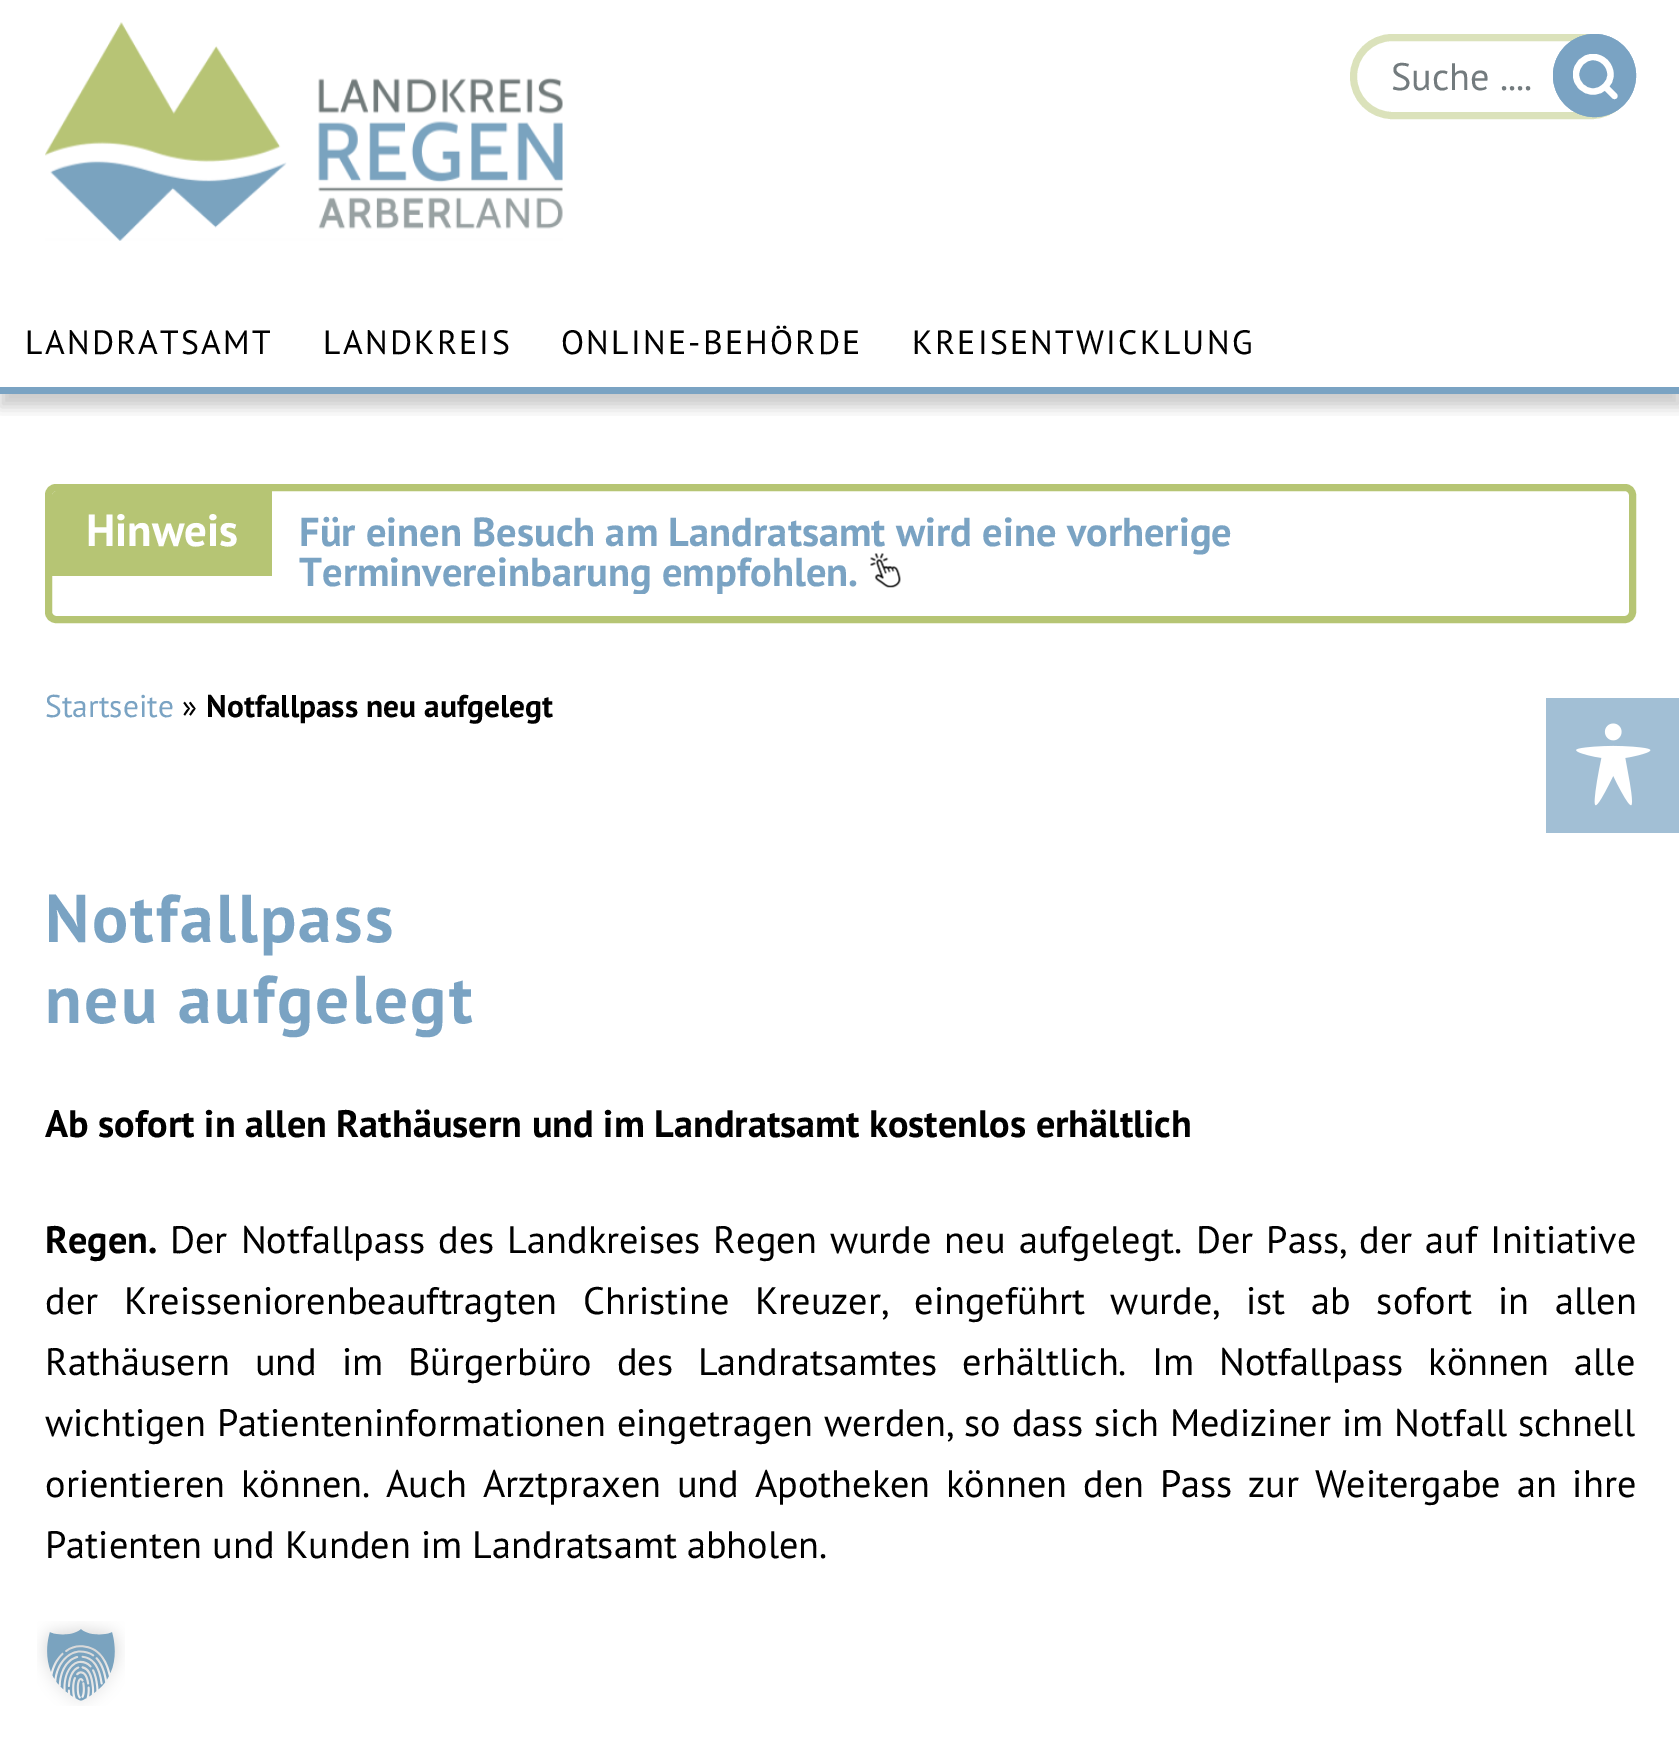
%!PS-Adobe-3.0
%%BoundingBox: 0 0 1679 1746
%%LanguageLevel: 3
%%Pages: 1
%%EndComments
%%BeginProlog
/setink { 3 { 255 div 3 1 roll } repeat setrgbcolor } def
/usefont { [ exch dup neg 0 0 3 -1 roll 0 0 ] selectfont } def
/drawtext { setink usefont moveto show } def
/fillbox { setink rectfill } def
/setalpha { dup .setfillconstantalpha .setstrokeconstantalpha } def
/disc { newpath 0 360 arc closepath } def
/rrect { 5 dict begin { /r /h /w /y /x } { exch def } forall
  x r add y moveto x w add y 2 copy h add r arct x w add y h add x 1 index r arct
  x y h add x y r arct x y 2 copy exch w add exch r arct closepath end } def
/softshadow { 12 dict begin { /a /b /q /h /w /y /x } { exch def } forall gsave /was 0 def
  9 -2 -9 { dup b mul 4 div /e exch def 1 sub .425 mul 2.718 exch exp 1 add a .99 .min exch div /now exch def
    1 1 now sub 1 was sub div sub setalpha /was now def
    w h .min e 2 mul add 0 gt { x e sub y e sub w e 2 mul add h e 2 mul add
      q e add b .6 mul add w h .min 2 div e add .min 0 .max rrect fill } if } for grestore end } def
/drawimage { 5 dict begin { /h /w /y /x /name } { exch def } forall
  gsave x y translate w h scale
  w h 8 [w 0 0 h 0 0] name (r) file false 3 colorimage grestore end } def
%%EndProlog
%%BeginSetup
<< /PageSize [1679 1746] /PageUsesTransparency true >> setpagedevice
%%EndSetup
%%Page: 1 1
0 .pushpdf14devicefilter
0 1746 translate 1 -1 scale
4 setmiterlimit
0 0 1679 1746 255 255 255 fillbox
gsave
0 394 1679 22 rectclip
0 0 0 setink
0 254 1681 153 0 7 0.2 softshadow
grestore
(assets/img1.rgb) 45 22 518 219 drawimage
219 226 187 setink
7 setlinewidth
1353.5 37.5 277 78 39 rrect stroke
(Suche ....) 1391 90 /PTSans-Regular 38.25 115 123 126 drawtext
122 163 195 setink
1594.5 75.5 41.5 disc fill
gsave
1573 54 45 45 rectclip
255 255 255 setink
6.3 setlinewidth
1 setlinecap
1 setlinejoin
1610.5 74.5 moveto 1610.5 84 1602.5 91.5 1593 91.5 curveto 1583.5 91.5 1576 84 1576 74.5 curveto 1576 65 1583.5 57 1593 57 curveto 1602.5 57 1610.5 65 1610.5 74.5 curveto closepath stroke
grestore
255 255 255 setink
6.3 setlinewidth
1 setlinecap
1 setlinejoin
1614.5 96 moveto 1605 86.5 lineto stroke
122 163 195 setink
9 setlinewidth
0 setlinecap
0 setlinejoin
1594.5 75.5 37 disc stroke
0 387 1679 7 122 163 195 fillbox
/PTSans-Regular 33.75 usefont
0 0 0 setink
25 354 moveto 2.25 0 (LANDRATSAMT) ashow
323 354 moveto 2.25 0 (LANDKREIS) ashow
561 354 moveto 2.25 0 (ONLINE-BEHÖRDE) ashow
912 354 moveto 2.25 0 (KREISENTWICKLUNG) ashow
182 197 116 setink
7 setlinewidth
48.5 487.5 1584 132 7.5 rrect stroke
57 491 moveto 272 491 lineto 272 576 lineto 52 576 lineto 52 496 lineto 52 493 54 491 57 491 curveto closepath fill
(Hinweis) 86 546 /PTSans-Bold 45 255 255 255 drawtext
(Für einen Besuch am Landratsamt wird eine vorherige) 299 546 /PTSans-Bold 40.5 122 163 195 drawtext
gsave
299 513 1285 81 rectclip
(Terminvereinbarung empfohlen.) 299 586 /PTSans-Bold 40.5 122 163 195 drawtext
grestore
(assets/img2.rgb) 870 553 31 35 drawimage
(Startseite) 45 717 /PTSans-Regular 31.5 122 163 195 drawtext
(») 182 717 /PTSans-Regular 31.5 0 0 0 drawtext
(Notfallpass neu aufgelegt) 206 717 /PTSans-Bold 31.5 0 0 0 drawtext
/PTSans-Bold 67.5 usefont
122 163 195 setink
45 942 moveto 2.25 0 (Notfallpass) ashow
45 1023 moveto 2.25 0 (neu aufgelegt) ashow
(Ab sofort in allen Rathäusern und im Landratsamt kostenlos erhältlich) 45 1137 /PTSans-Bold 38.25 0 0 0 drawtext
(Regen.) 45 1253 /PTSans-Bold 38.25 0 0 0 drawtext
/PTSans-Regular 38.25 usefont
170 1253 moveto 2.9 0 32 (Der Notfallpass des Landkreises Regen wurde neu aufgelegt. Der Pass, der auf Initiative) widthshow
45 1314 moveto 15.75 0 32 (der Kreisseniorenbeauftragten Christine Kreuzer, eingeführt wurde, ist ab sofort in allen) widthshow
45 1375 moveto 14.75 0 32 (Rathäusern und im Bürgerbüro des Landratsamtes erhältlich. Im Notfallpass können alle) widthshow
45 1436 moveto 0.75 0 32 (wichtigen Patienteninformationen eingetragen werden, so dass sich Mediziner im Notfall schnell) widthshow
45 1497 moveto 5.6 0 32 (orientieren können. Auch Arztpraxen und Apotheken können den Pass zur Weitergabe an ihre) widthshow
(Patienten und Kunden im Landratsamt abholen.) 45 1558 /PTSans-Regular 38.25 0 0 0 drawtext
1546 698 133 135 162 191 213 fillbox
(assets/img3.rgb) 1576 723 75 83 drawimage
(assets/img4.rgb) 37 1621 88 85 drawimage
.poppdf14devicefilter showpage
%%EOF
